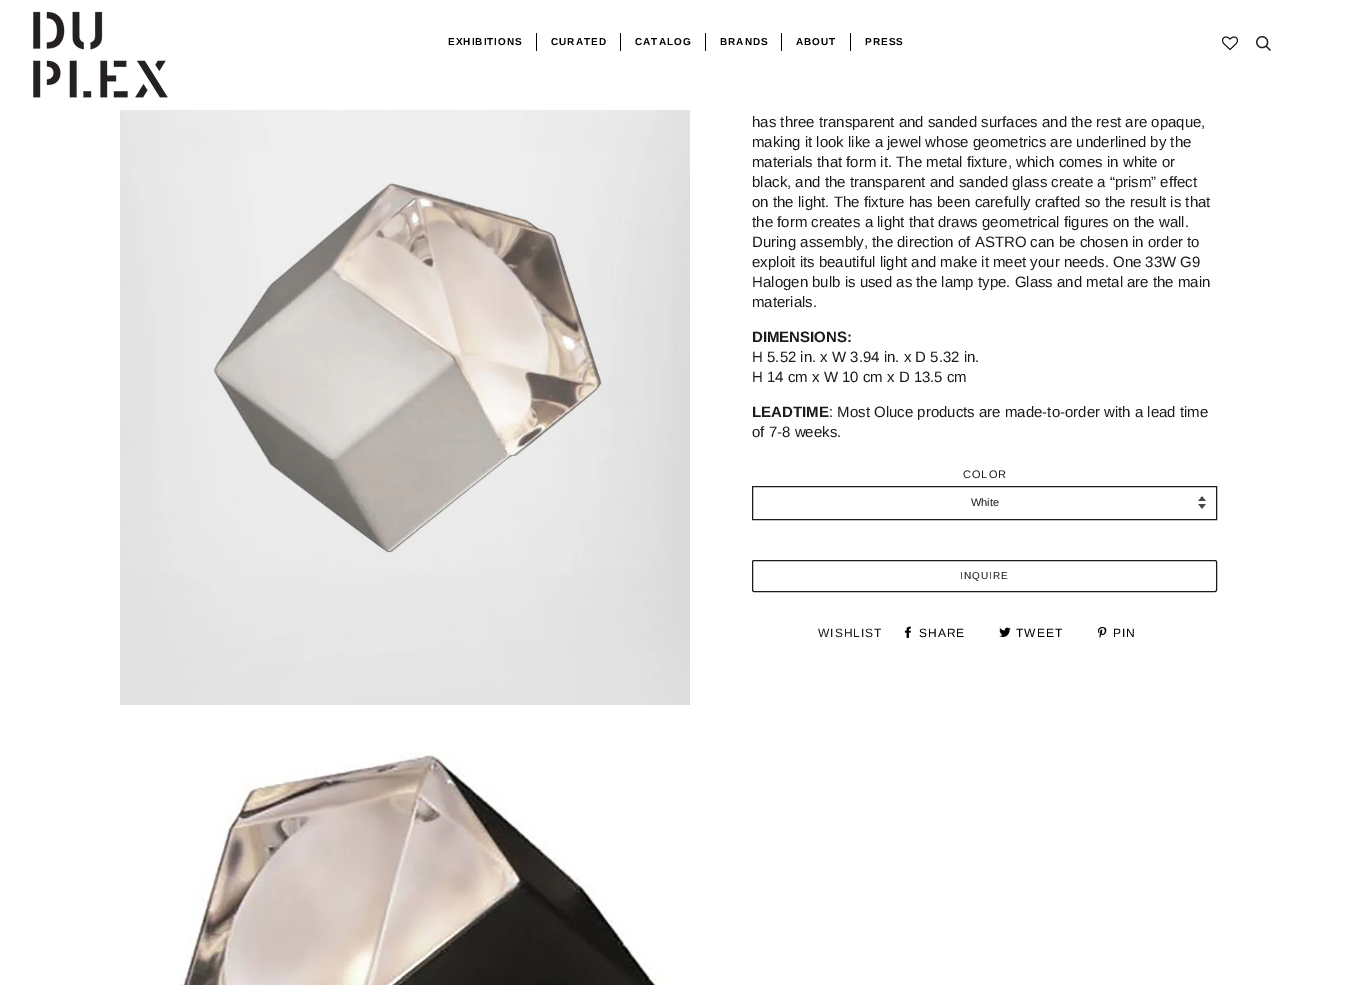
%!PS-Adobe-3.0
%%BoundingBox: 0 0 1350 993
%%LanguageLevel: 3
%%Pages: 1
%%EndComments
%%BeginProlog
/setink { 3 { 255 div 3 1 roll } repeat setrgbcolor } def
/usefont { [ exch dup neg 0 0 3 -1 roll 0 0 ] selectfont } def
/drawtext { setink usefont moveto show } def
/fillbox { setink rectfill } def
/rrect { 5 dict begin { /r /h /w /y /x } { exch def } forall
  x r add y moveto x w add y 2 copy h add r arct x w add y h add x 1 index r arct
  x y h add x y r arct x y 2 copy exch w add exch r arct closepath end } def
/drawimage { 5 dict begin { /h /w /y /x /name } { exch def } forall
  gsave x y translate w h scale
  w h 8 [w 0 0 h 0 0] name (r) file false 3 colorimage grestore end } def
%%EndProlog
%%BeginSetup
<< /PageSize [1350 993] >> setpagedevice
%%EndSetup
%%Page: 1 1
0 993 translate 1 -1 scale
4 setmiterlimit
0 0 1350 993 255 255 255 fillbox
(assets/img1.rgb) 33 11 135 87 drawimage
/LiberationSans-Bold 10 usefont
0 0 0 setink
448 45 moveto 1 0 (EXHIBITIONS) ashow
536 33 1 18 0 0 0 fillbox
551 45 moveto 1 0 (CURATED) ashow
620 33 1 18 0 0 0 fillbox
635 45 moveto 1 0 (CATALOG) ashow
705 33 1 18 0 0 0 fillbox
720 45 moveto 1 0 (BRANDS) ashow
781 33 1 18 0 0 0 fillbox
796 45 moveto 1 0 (ABOUT) ashow
850 33 1 18 0 0 0 fillbox
865 45 moveto 1 0 (PRESS) ashow
(assets/img2.rgb) 1222 36 16 15 drawimage
(assets/img3.rgb) 1256 36 15 15 drawimage
(assets/img4.rgb) 120 110 570 595 drawimage
(assets/img5.rgb) 178 751 487 234 drawimage
(has three transparent and sanded surfaces and the rest are opaque,) 752 127 /LiberationSans-Regular 15 28 26 26 drawtext
(making it look like a jewel whose geometrics are underlined by the) 752 147 /LiberationSans-Regular 15 28 26 26 drawtext
(materials that form it. The metal fixture, which comes in white or) 752 167 /LiberationSans-Regular 15 28 26 26 drawtext
(black, and the transparent and sanded glass create a “prism” effect) 752 187 /LiberationSans-Regular 15 28 26 26 drawtext
(on the light. The fixture has been carefully crafted so the result is that) 752 207 /LiberationSans-Regular 15 28 26 26 drawtext
(the form creates a light that draws geometrical figures on the wall.) 752 227 /LiberationSans-Regular 15 28 26 26 drawtext
(During assembly, the direction of ASTRO can be chosen in order to) 752 247 /LiberationSans-Regular 15 28 26 26 drawtext
(exploit its beautiful light and make it meet your needs. One 33W G9) 752 267 /LiberationSans-Regular 15 28 26 26 drawtext
(Halogen bulb is used as the lamp type. Glass and metal are the main) 752 287 /LiberationSans-Regular 15 28 26 26 drawtext
(materials.) 752 307 /LiberationSans-Regular 15 28 26 26 drawtext
(DIMENSIONS:) 752 342 /LiberationSans-Bold 15 28 26 26 drawtext
(H 5.52 in. x W 3.94 in. x D 5.32 in.) 752 362 /LiberationSans-Regular 15 28 26 26 drawtext
(H 14 cm x W 10 cm x D 13.5 cm) 752 382 /LiberationSans-Regular 15 28 26 26 drawtext
(LEADTIME) 752 417 /LiberationSans-Bold 15 28 26 26 drawtext
(: Most Oluce products are made-to-order with a lead time) 829 417 /LiberationSans-Regular 15 28 26 26 drawtext
(of 7-8 weeks.) 752 437 /LiberationSans-Regular 15 28 26 26 drawtext
/LiberationSans-Regular 11 usefont
963 478 moveto 1 0 (COLOR) ashow
(assets/img6.rgb) 1198 496 8 13 drawimage
752.5 486.5 464 33 rectstroke
(White) 971 506 /LiberationSans-Regular 11 28 26 26 drawtext
752.5 560.5 464 31 1.5 rrect stroke
/LiberationSans-Regular 10 usefont
960 579 moveto 1 0 (INQUIRE) ashow
/LiberationSans-Regular 12 usefont
818 637 moveto 1 0 (WISHLIST) ashow
(assets/img7.rgb) 904 626 7 12 drawimage
0 0 0 setink
919 637 moveto 1 0 (SHARE) ashow
(assets/img8.rgb) 999 627 12 10 drawimage
1016 637 moveto 1 0 (TWEET) ashow
(assets/img9.rgb) 1097 626 10 12 drawimage
1113 637 moveto 1 0 (PIN) ashow
showpage
%%EOF
